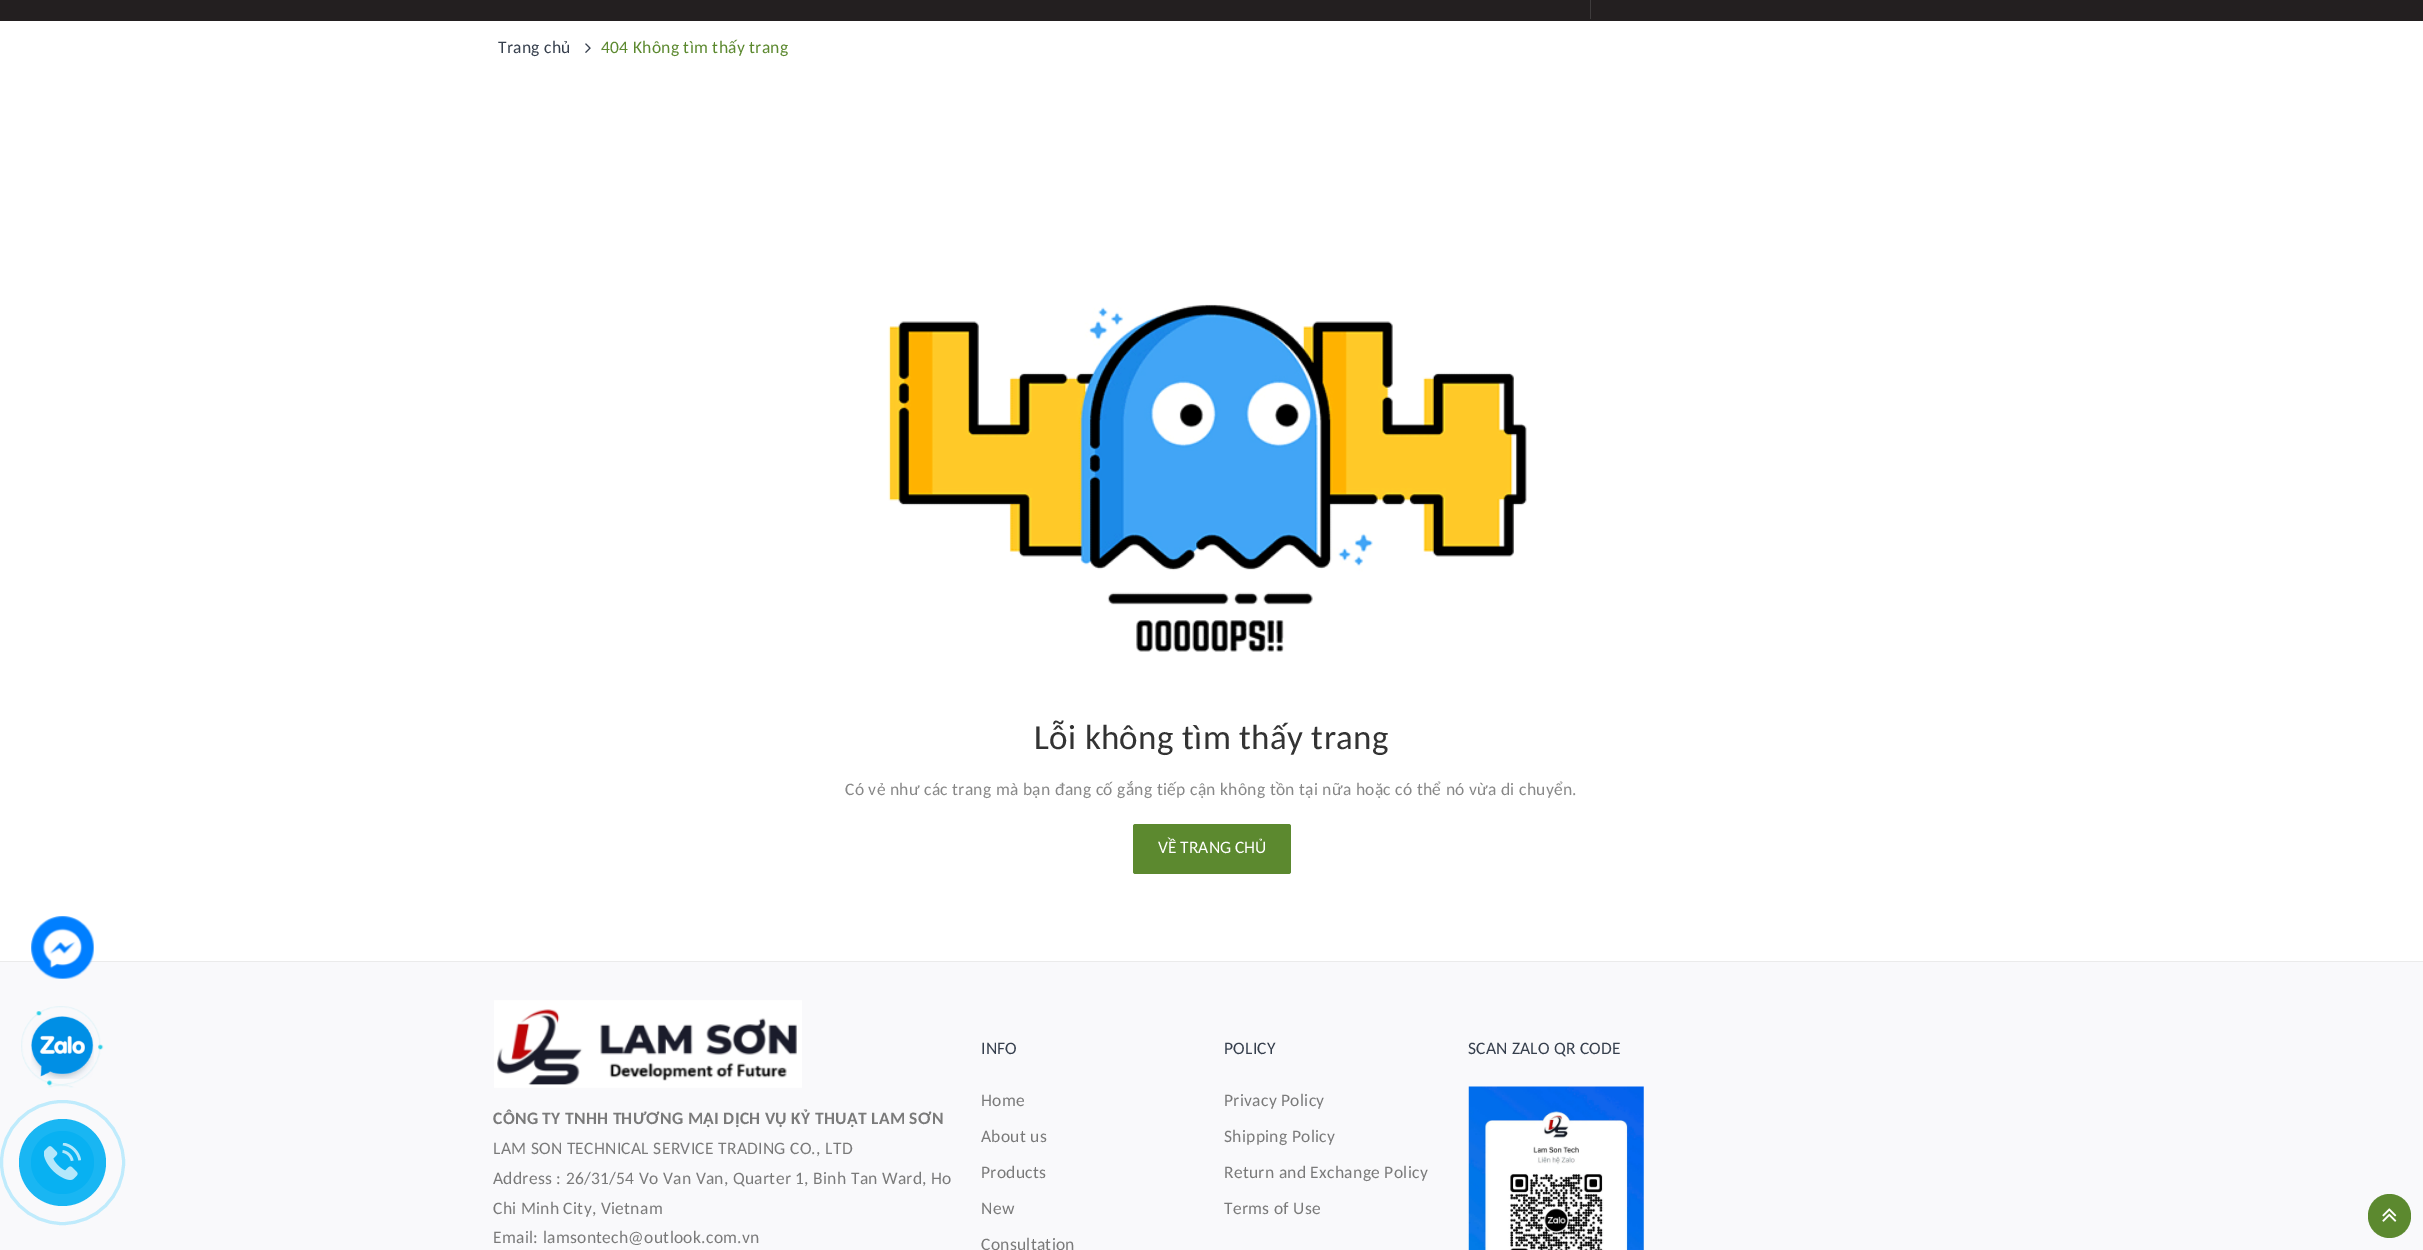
%!PS-Adobe-3.0
%%BoundingBox: 0 0 2423 1250
%%LanguageLevel: 3
%%Pages: 1
%%EndComments
%%BeginProlog
/setink { 3 { 255 div 3 1 roll } repeat setrgbcolor } def
/usefont { [ exch dup neg 0 0 3 -1 roll 0 0 ] selectfont } def
/drawtext { setink usefont moveto show } def
/fillbox { setink rectfill } def
/disc { newpath 0 360 arc closepath } def
/rrect { 5 dict begin { /r /h /w /y /x } { exch def } forall
  x r add y moveto x w add y 2 copy h add r arct x w add y h add x 1 index r arct
  x y h add x y r arct x y 2 copy exch w add exch r arct closepath end } def
/drawimage { 5 dict begin { /h /w /y /x /name } { exch def } forall
  gsave x y translate w h scale
  w h 8 [w 0 0 h 0 0] name (r) file false 3 colorimage grestore end } def
%%EndProlog
%%BeginSetup
<< /PageSize [2423 1250] >> setpagedevice
%%EndSetup
%%Page: 1 1
0 1250 translate 1 -1 scale
4 setmiterlimit
0 0 2423 1250 255 255 255 fillbox
0 0 2423 21 35 31 32 fillbox
1590 0 1 19 62 59 60 fillbox
/Carlito-Regular 17.5 usefont
54 63 77 setink
498 53 moveto 0.3 0 (Trang chủ) ashow
(assets/img1.rgb) 585 43 6 10 drawimage
92 137 47 setink
601 53 moveto 0.3 0 (404 Không tìm thấy trang) ashow
(assets/img2.rgb) 888 304 639 348 drawimage
/Carlito-Regular 35 usefont
51 51 51 setink
1034 749 moveto 0.35 0 (Lỗi không tìm thấy trang) ashow
/Carlito-Regular 17.5 usefont
136 136 136 setink
845 795 moveto 0.3 0 (Có vẻ như các trang mà bạn đang cố gắng tiếp cận không tồn tại nữa hoặc có thể nó vừa di chuyển.) ashow
92 137 47 setink
1133 824 158 50 2.5 rrect fill
(VỀ TRANG CHỦ) 1158 853 /Carlito-Regular 17.5 255 255 255 drawtext
0 962 2423 288 249 249 251 fillbox
0 961 2423 1 235 235 235 fillbox
(assets/img3.rgb) 31 916 63 63 drawimage
(assets/img4.rgb) 21 1006 83 82 drawimage
(assets/img5.rgb) 31 1016 63 63 drawimage
54 63 77 setink
981 1054 moveto 0.2 0 (INFO) ashow
122 122 122 setink
981 1106 moveto 0.3 0 (Home) ashow
981 1142 moveto 0.3 0 (About us) ashow
981 1178 moveto 0.3 0 (Products) ashow
981 1214 moveto 0.3 0 (New) ashow
981 1250 moveto 0.3 0 (Consultation) ashow
54 63 77 setink
1224 1054 moveto 0.2 0 (POLICY) ashow
122 122 122 setink
1224 1106 moveto 0.3 0 (Privacy Policy) ashow
1224 1142 moveto 0.3 0 (Shipping Policy) ashow
1224 1178 moveto 0.3 0 (Return and Exchange Policy) ashow
1224 1214 moveto 0.3 0 (Terms of Use) ashow
54 63 77 setink
1468 1054 moveto 0.2 0 (SCAN ZALO QR CODE) ashow
(assets/img6.rgb) 1468 1086 176 164 drawimage
(assets/img7.rgb) 494 1000 308 88 drawimage
/Carlito-Bold 17.5 usefont
122 122 122 setink
493 1124 moveto 0.3 0 (CÔNG TY TNHH THƯƠNG MẠI DỊCH VỤ KỶ THUẬT LAM SƠN) ashow
/Carlito-Regular 17.5 usefont
493 1154 moveto 0.3 0 (LAM SON TECHNICAL SERVICE TRADING CO., LTD) ashow
493 1184 moveto 0.3 0 (Address : 26/31/54 Vo Van Van, Quarter 1, Binh Tan Ward, Ho) ashow
493 1214 moveto 0.3 0 (Chi Minh City, Vietnam) ashow
493 1243 moveto 0.3 0 (Email: lamsontech@outlook.com.vn) ashow
92 137 47 setink
2368 1194 43 44 21.5 rrect fill
(assets/img8.rgb) 2382 1208 15 14 drawimage
191 235 252 setink
3 setlinewidth
62.5 1162.5 61 disc stroke
25 182 243 setink
62.5 1162.5 43.5 disc fill
8 177 242 setink
62.5 1162.5 31.5 disc fill
(assets/img9.rgb) 44 1143 37 37 drawimage
showpage
%%EOF
